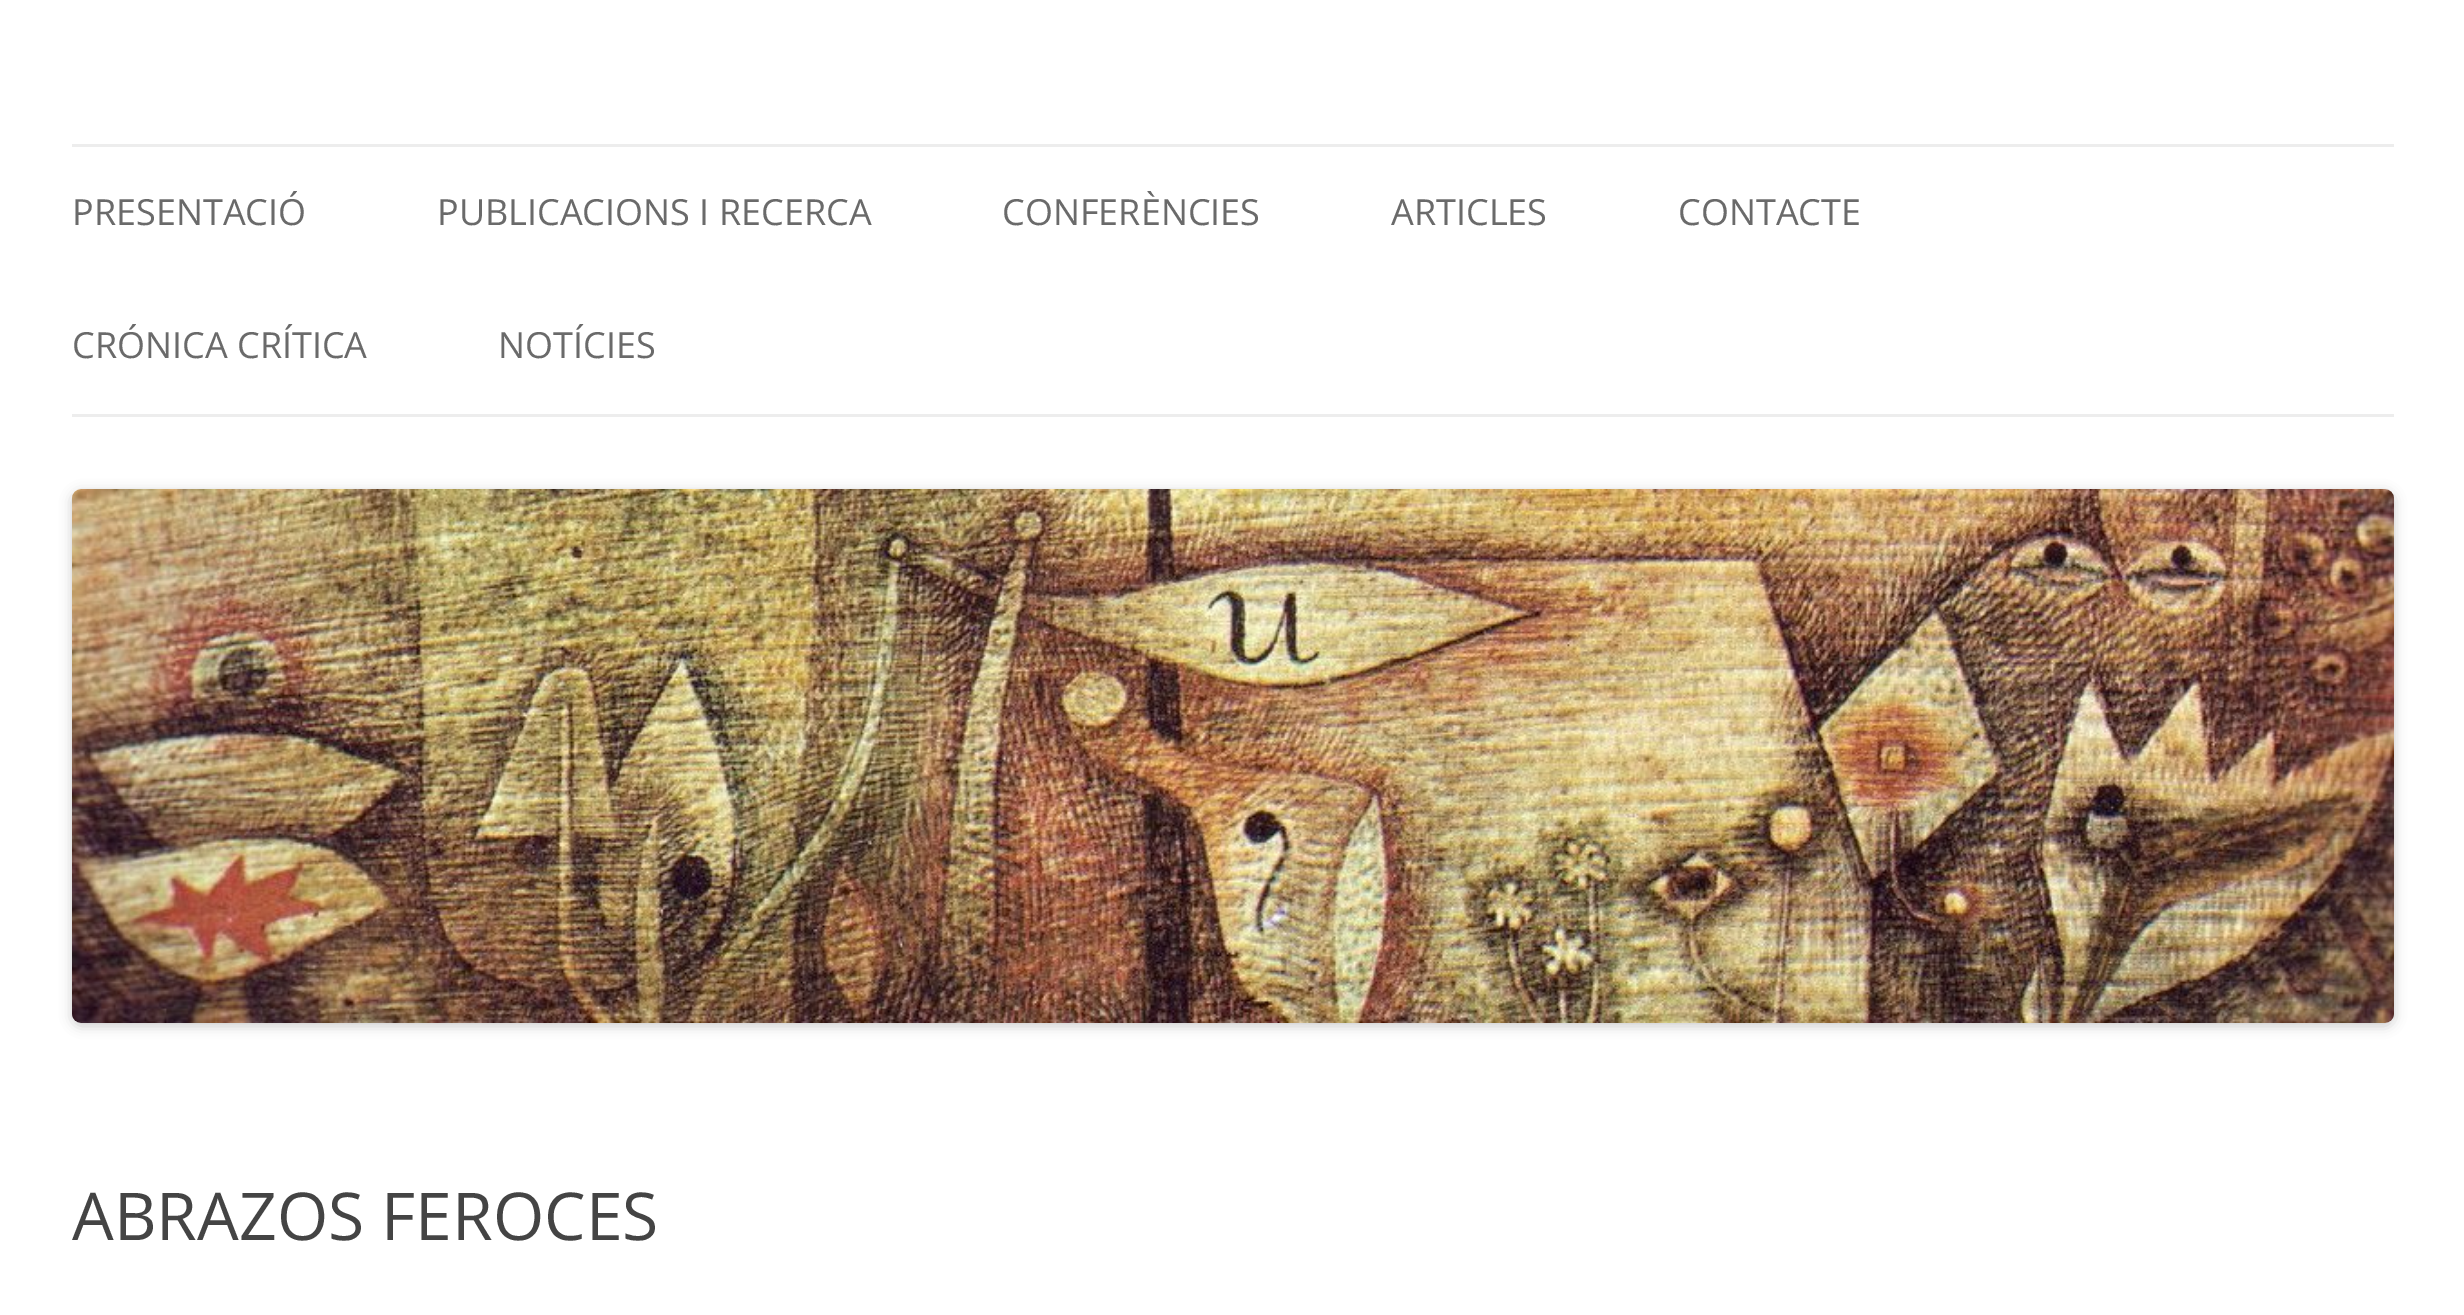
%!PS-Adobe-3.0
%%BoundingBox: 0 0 2464 1315
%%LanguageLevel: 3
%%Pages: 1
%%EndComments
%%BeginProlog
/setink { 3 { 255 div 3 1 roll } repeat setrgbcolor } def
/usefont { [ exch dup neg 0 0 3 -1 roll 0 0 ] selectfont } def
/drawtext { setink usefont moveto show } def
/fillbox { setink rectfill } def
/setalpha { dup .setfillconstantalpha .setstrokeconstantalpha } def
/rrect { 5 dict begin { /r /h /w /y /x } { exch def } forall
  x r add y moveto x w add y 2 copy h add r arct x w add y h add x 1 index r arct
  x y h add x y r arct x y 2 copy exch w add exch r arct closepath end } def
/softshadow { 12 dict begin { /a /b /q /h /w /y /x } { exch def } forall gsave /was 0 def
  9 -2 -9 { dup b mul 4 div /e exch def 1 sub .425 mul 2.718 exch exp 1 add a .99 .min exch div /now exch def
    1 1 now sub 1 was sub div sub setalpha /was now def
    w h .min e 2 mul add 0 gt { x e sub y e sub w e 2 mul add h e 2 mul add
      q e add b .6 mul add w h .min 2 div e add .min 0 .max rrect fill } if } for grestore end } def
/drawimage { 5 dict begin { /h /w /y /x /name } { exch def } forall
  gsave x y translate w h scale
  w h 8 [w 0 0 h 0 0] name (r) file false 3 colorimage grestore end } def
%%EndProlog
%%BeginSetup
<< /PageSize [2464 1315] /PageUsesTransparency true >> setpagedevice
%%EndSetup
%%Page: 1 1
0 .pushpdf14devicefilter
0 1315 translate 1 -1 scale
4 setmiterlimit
0 0 2464 1315 255 255 255 fillbox
72 144 2322 3 237 237 237 fillbox
72 414 2322 3 237 237 237 fillbox
(PRESENTACIÓ) 72 225 /OpenSans-Regular 36 106 106 106 drawtext
(PUBLICACIONS I RECERCA) 437 225 /OpenSans-Regular 36 106 106 106 drawtext
(CONFERÈNCIES) 1002 225 /OpenSans-Regular 36 106 106 106 drawtext
(ARTICLES) 1391 225 /OpenSans-Regular 36 106 106 106 drawtext
(CONTACTE) 1678 225 /OpenSans-Regular 36 106 106 106 drawtext
(CRÓNICA CRÍTICA) 72 358 /OpenSans-Regular 36 106 106 106 drawtext
(NOTÍCIES) 498 358 /OpenSans-Regular 36 106 106 106 drawtext
0 0 0 setink
72 492 2322 534 9 6 0.2 softshadow
(assets/img1.rgb) 72 489 2322 534 drawimage
(ABRAZOS FEROCES) 72 1240 /OpenSans-Regular 66 68 68 68 drawtext
.poppdf14devicefilter showpage
%%EOF
